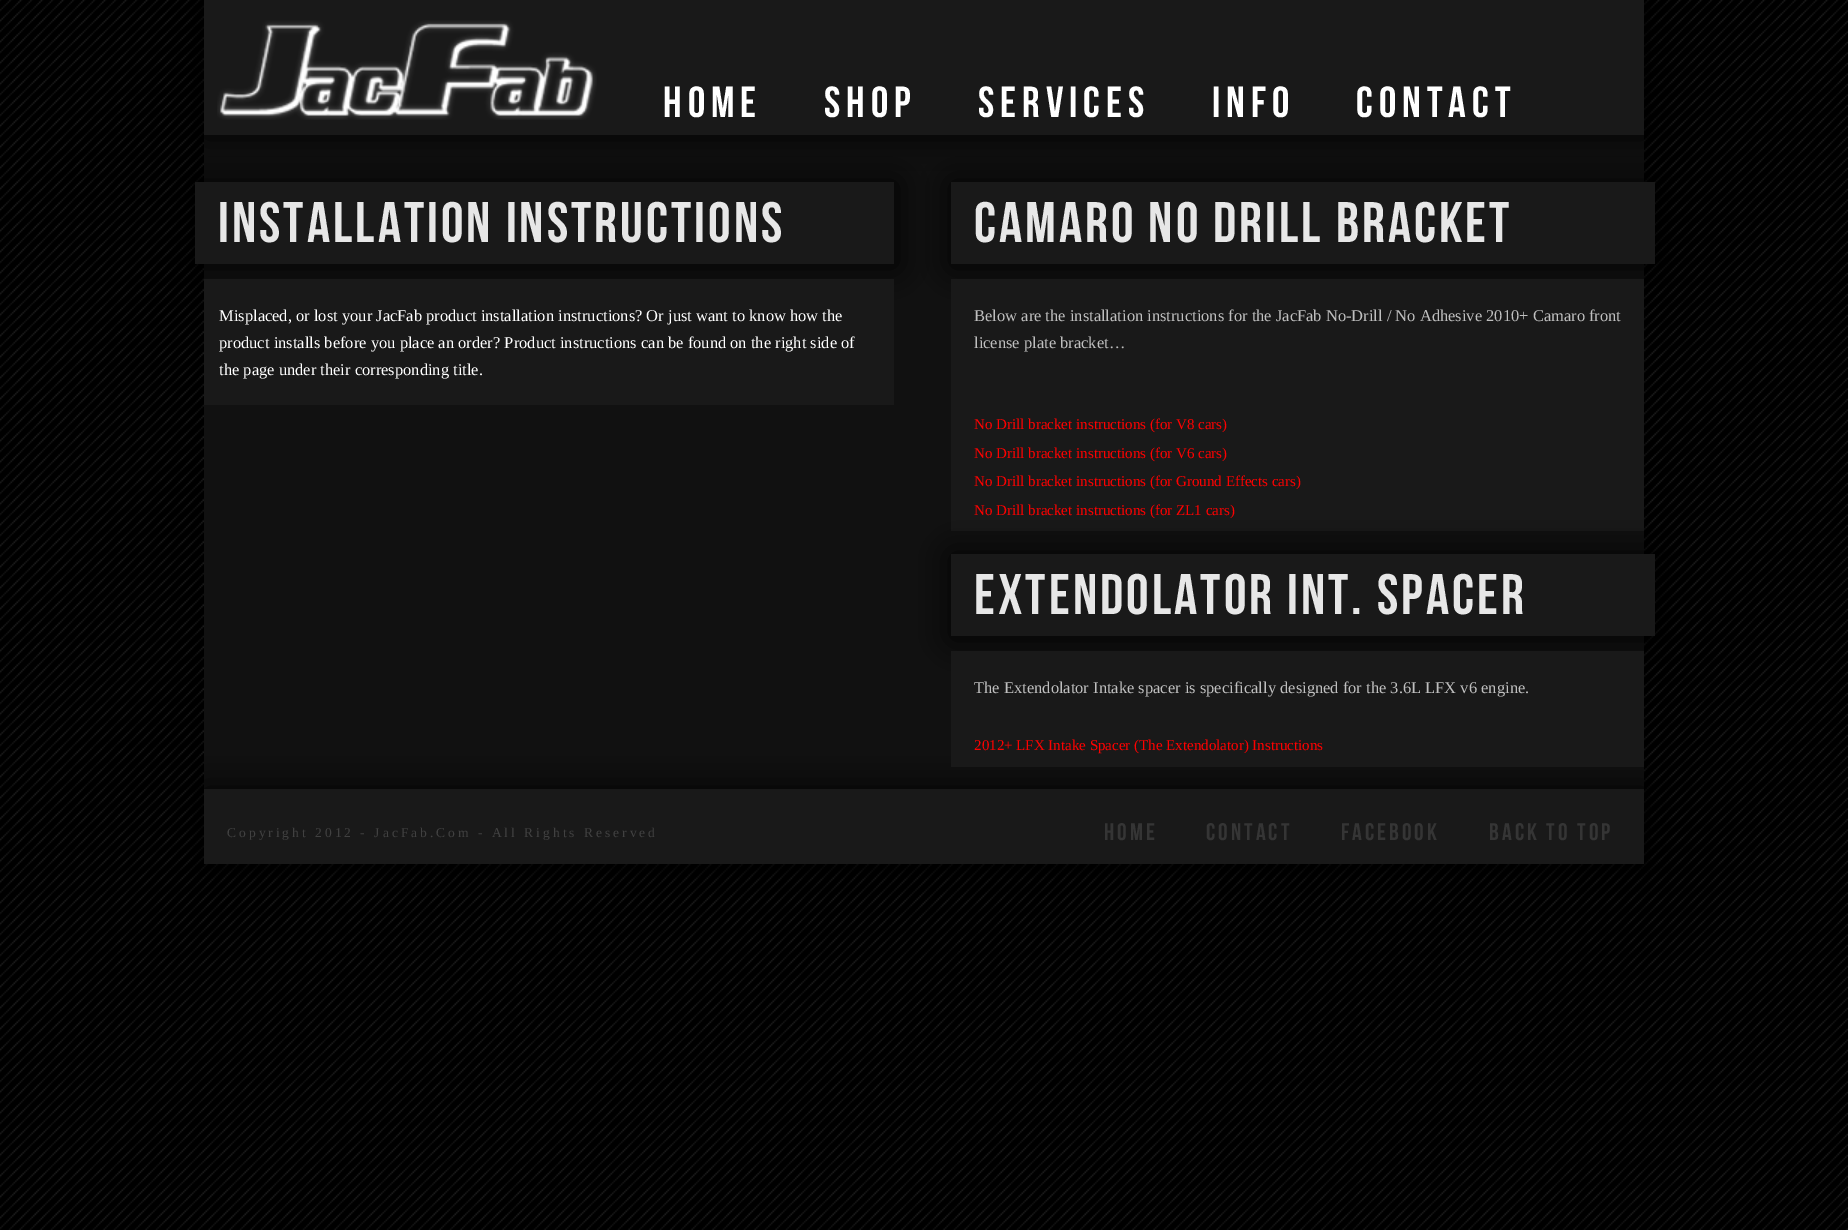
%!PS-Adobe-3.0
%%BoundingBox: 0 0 1848 1230
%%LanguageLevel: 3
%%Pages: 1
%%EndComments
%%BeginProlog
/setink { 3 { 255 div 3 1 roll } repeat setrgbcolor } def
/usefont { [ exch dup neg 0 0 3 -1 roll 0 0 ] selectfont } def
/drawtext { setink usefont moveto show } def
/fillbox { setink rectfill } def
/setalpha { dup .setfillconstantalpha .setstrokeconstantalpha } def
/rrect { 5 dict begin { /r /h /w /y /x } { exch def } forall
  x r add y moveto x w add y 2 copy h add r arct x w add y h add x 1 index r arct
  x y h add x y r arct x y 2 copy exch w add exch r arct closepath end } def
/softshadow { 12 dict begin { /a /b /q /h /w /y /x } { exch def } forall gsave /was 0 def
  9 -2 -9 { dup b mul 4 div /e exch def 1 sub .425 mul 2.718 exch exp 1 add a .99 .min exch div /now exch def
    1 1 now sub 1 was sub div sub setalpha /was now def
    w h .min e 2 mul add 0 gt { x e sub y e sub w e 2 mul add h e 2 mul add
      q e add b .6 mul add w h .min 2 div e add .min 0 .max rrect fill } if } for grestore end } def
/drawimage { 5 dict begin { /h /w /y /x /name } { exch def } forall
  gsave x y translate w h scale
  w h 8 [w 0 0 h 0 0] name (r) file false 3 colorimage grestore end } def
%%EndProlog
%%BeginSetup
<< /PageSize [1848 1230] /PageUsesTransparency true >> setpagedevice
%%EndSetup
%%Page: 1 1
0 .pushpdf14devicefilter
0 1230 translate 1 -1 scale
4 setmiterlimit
0 0 1848 1230 255 255 255 fillbox
(assets/img1.rgb) 0 0 1848 1230 drawimage
204 135 1440 654 17 17 17 fillbox
0 0 0 setink
204 0 1443 138 0 15 1 softshadow
204 0 1440 135 25 25 25 fillbox
(assets/img2.rgb) 217 20 380 100 drawimage
/BebasNeue-Regular 43.5 usefont
255 255 255 setink
663 117 moveto 6 0 (HOME) ashow
824 117 moveto 6 0 (SHOP) ashow
978 117 moveto 6 0 (SERVICES) ashow
1212 117 moveto 6 0 (Info) ashow
1356 117 moveto 6 0 (CONTACT) ashow
0 0 0 setink
195 182 702 85 0 15 1 softshadow
195 182 699 82 25 25 25 fillbox
/BebasNeue-Regular 57 usefont
231 231 231 setink
218 242 moveto 3 0 (Installation Instructions) ashow
204 279 690 126 25 25 25 fillbox
(Misplaced, or lost your JacFab product installation instructions? Or just want to know how the) 219 321 /LiberationSerif-Regular 16.5 255 255 255 drawtext
(product installs before you place an order? Product instructions can be found on the right side of) 219 348 /LiberationSerif-Regular 16.5 255 255 255 drawtext
(the page under their corresponding title.) 219 375 /LiberationSerif-Regular 16.5 255 255 255 drawtext
0 0 0 setink
951 182 707 85 0 15 1 softshadow
951 182 704 82 25 25 25 fillbox
/BebasNeue-Regular 57 usefont
231 231 231 setink
974 242 moveto 3 0 (Camaro No Drill Bracket) ashow
951 279 693 252 25 25 25 fillbox
(Below are the installation instructions for the JacFab No-Drill / No Adhesive 2010+ Camaro front) 974 321 /LiberationSerif-Regular 16.5 191 191 191 drawtext
(license plate bracket…) 974 348 /LiberationSerif-Regular 16.5 191 191 191 drawtext
(No Drill bracket instructions \(for V8 cars\)) 974 429 /LiberationSerif-Regular 15 255 0 0 drawtext
(No Drill bracket instructions \(for V6 cars\)) 974 458 /LiberationSerif-Regular 15 255 0 0 drawtext
(No Drill bracket instructions \(for Ground Effects cars\)) 974 486 /LiberationSerif-Regular 15 255 0 0 drawtext
0 0 0 setink
951 554 707 85 0 15 1 softshadow
(No Drill bracket instructions \(for ZL1 cars\)) 974 515 /LiberationSerif-Regular 15 255 0 0 drawtext
951 554 704 82 25 25 25 fillbox
/BebasNeue-Regular 57 usefont
231 231 231 setink
974 614 moveto 3 0 (Extendolator Int. Spacer) ashow
0 0 0 setink
204 789 1443 78 0 15 1 softshadow
951 651 693 116 25 25 25 fillbox
(The Extendolator Intake spacer is specifically designed for the 3.6L LFX v6 engine.) 974 693 /LiberationSerif-Regular 16.5 191 191 191 drawtext
(2012+ LFX Intake Spacer \(The Extendolator\) Instructions) 974 750 /LiberationSerif-Regular 15 255 0 0 drawtext
204 789 1440 75 25 25 25 fillbox
/LiberationSerif-Regular 13.5 usefont
65 65 65 setink
227 837 moveto 3 0 (Copyright 2012 - JacFab.Com - All Rights Reserved) ashow
/BebasNeue-Regular 24 usefont
53 53 53 setink
1104 840 moveto 3 0 (HOME) ashow
1206 840 moveto 3 0 (CONTACT) ashow
1341 840 moveto 3 0 (FACEBOOK) ashow
1489 840 moveto 3 0 (Back To Top) ashow
.poppdf14devicefilter showpage
%%EOF
